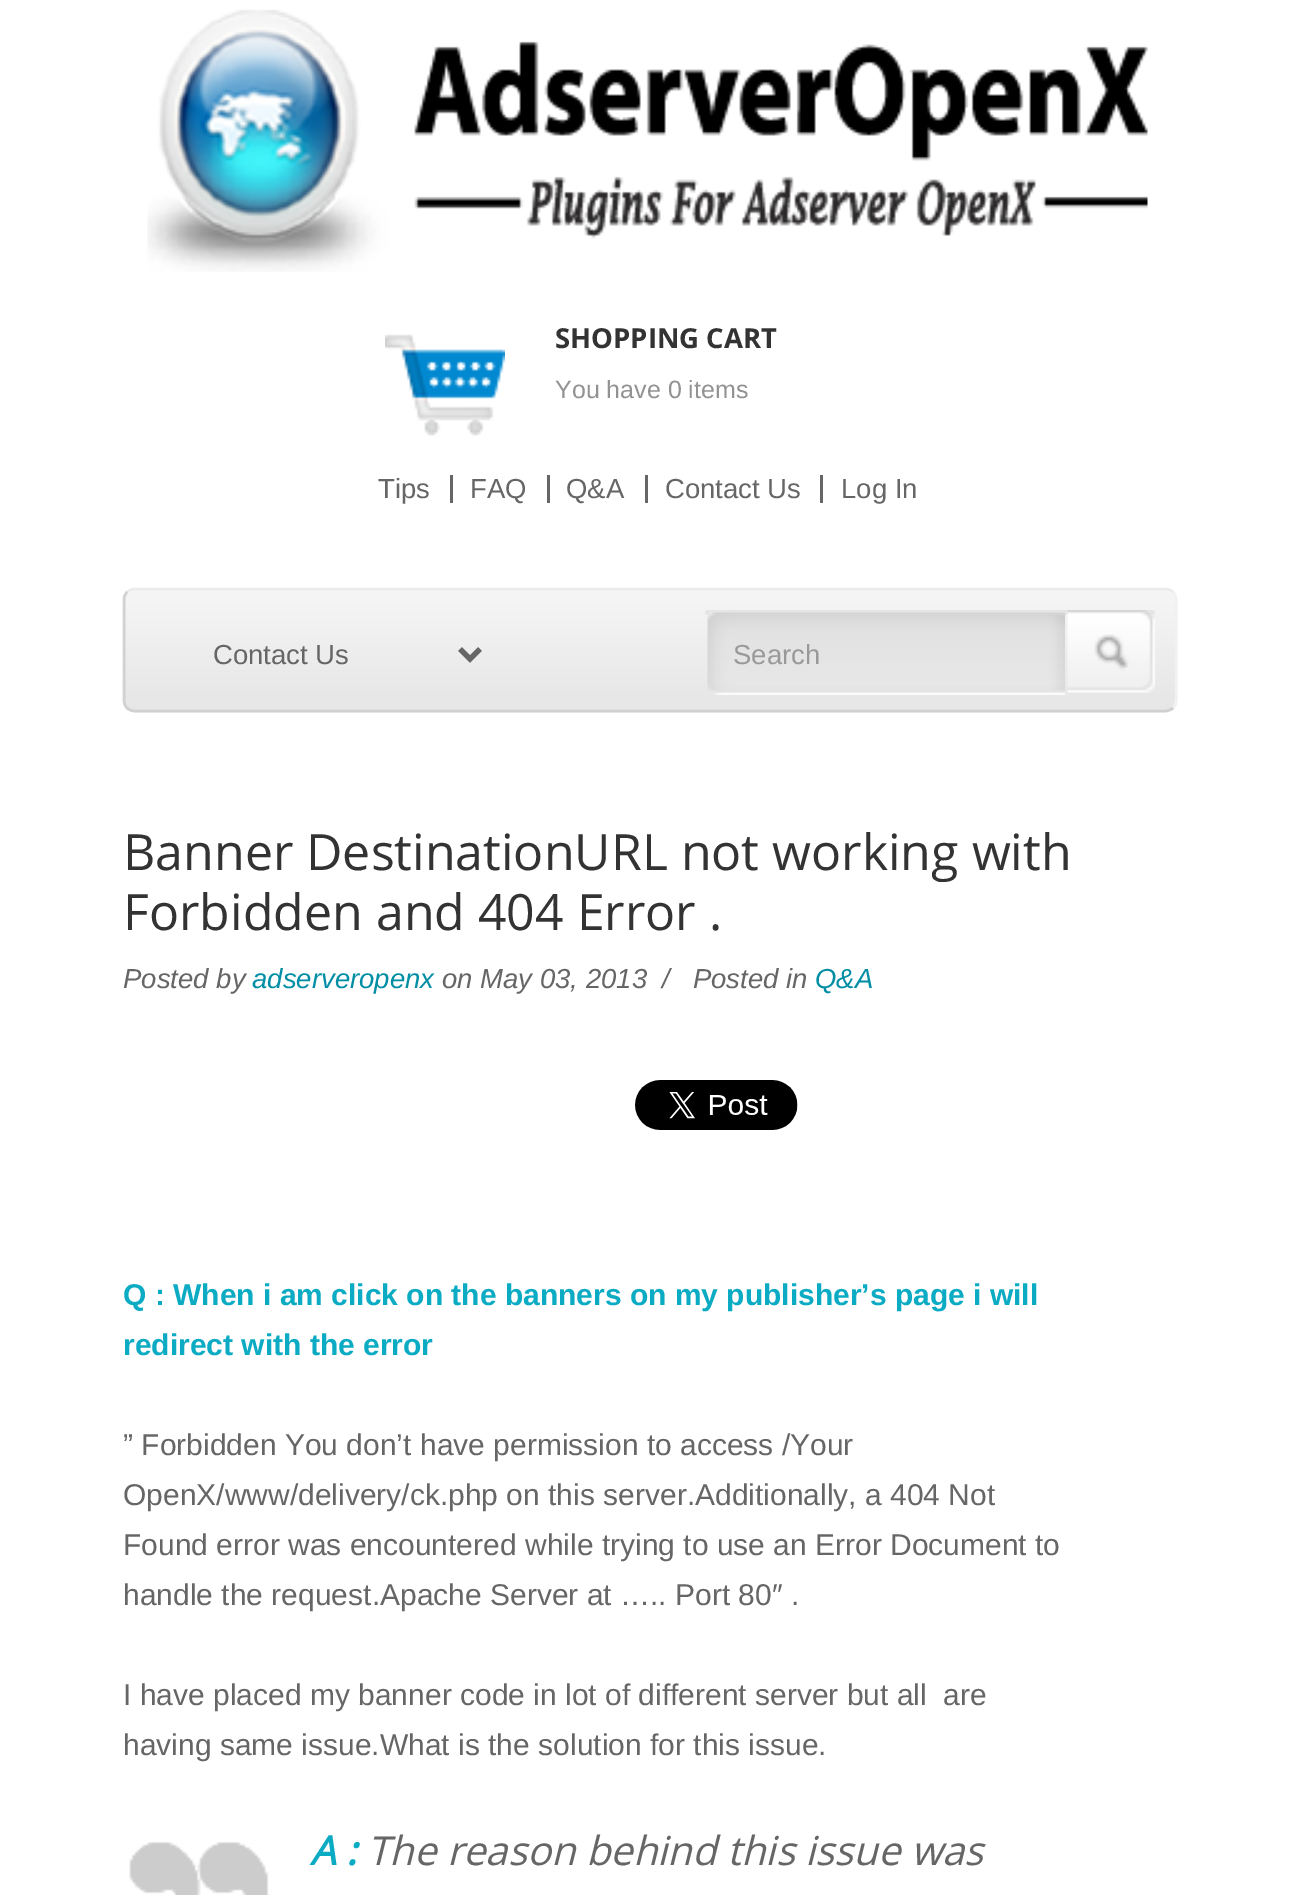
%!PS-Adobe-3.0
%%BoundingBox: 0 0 1294 1895
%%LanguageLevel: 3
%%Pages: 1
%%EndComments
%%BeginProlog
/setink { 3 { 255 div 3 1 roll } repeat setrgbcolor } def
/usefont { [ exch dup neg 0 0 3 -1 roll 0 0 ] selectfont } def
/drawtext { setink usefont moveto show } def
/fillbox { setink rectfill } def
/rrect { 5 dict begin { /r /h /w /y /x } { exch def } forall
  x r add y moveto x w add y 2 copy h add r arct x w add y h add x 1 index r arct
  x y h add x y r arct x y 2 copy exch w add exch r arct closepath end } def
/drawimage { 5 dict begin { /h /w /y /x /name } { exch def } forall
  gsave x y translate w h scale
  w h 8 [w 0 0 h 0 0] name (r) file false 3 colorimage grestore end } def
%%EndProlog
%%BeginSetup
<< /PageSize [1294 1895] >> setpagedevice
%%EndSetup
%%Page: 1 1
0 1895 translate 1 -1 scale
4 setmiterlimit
0 0 1294 1895 255 255 255 fillbox
(assets/img1.rgb) 147 9 1001 263 drawimage
(assets/img2.rgb) 385 334 120 102 drawimage
(SHOPPING CART) 555 348 /OpenSans-Bold 27.5 51 51 51 drawtext
(You have 0 items) 555 398 /LiberationSans-Regular 25 146 146 146 drawtext
(Tips) 378 498 /LiberationSans-Regular 27.5 102 102 102 drawtext
450 475 3 28 102 102 102 fillbox
(FAQ) 470 498 /LiberationSans-Regular 27.5 102 102 102 drawtext
547 475 3 28 102 102 102 fillbox
(Q&A) 566 498 /LiberationSans-Regular 27.5 102 102 102 drawtext
645 475 3 28 102 102 102 fillbox
(Contact Us) 665 498 /LiberationSans-Regular 27.5 102 102 102 drawtext
820 475 3 28 102 102 102 fillbox
(Log In) 841 498 /LiberationSans-Regular 27.5 102 102 102 drawtext
(assets/img3.rgb) 122 590 1056 120 drawimage
236 236 236 setink
2.5 setlinewidth
127 592 moveto 129 590 132 589 135 589 curveto 1165 589 lineto 1168 589 1171 590 1173 592 curveto stroke
241 241 241 setink
1173 592 moveto 1175 594 1176 597 1176 600 curveto 1176 700 lineto 1176 703 1175 706 1173 708 curveto stroke
208 208 208 setink
1173 708 moveto 1171 710 1168 711 1165 711 curveto 135 711 lineto 132 711 129 710 127 708 curveto stroke
210 210 210 setink
127 708 moveto 125 706 124 703 124 700 curveto 124 600 lineto 124 597 125 594 127 592 curveto stroke
102 102 102 setink
5 setlinewidth
460 649 moveto 470 659 lineto 480 649 lineto stroke
(Contact Us) 213 664 /LiberationSans-Regular 27.5 102 102 102 drawtext
229 229 229 setink
705 610 450 5 2.5 rrect fill
(assets/img4.rgb) 707 612 358 83 drawimage
(Search) 733 664 /LiberationSans-Regular 27.5 153 153 153 drawtext
(assets/img5.rgb) 1067 610 88 83 drawimage
(Banner DestinationURL not working with) 123 870 /OpenSans-Regular 50 51 51 51 drawtext
(Forbidden and 404 Error .) 123 930 /OpenSans-Regular 50 51 51 51 drawtext
(Posted by) 123 988 /LiberationSans-Italic 27.5 102 102 102 drawtext
(adserveropenx) 252 988 /LiberationSans-Italic 27.5 2 142 164 drawtext
(on May 03, 2013  /   Posted in) 442 988 /LiberationSans-Italic 27.5 102 102 102 drawtext
(Q&A) 815 988 /LiberationSans-Italic 27.5 2 142 164 drawtext
(assets/img6.rgb) 635 1080 163 50 drawimage
(Q : When i am click on the banners on my publisher’s page i will) 123 1305 /LiberationSans-Bold 30 11 171 196 drawtext
(redirect with the error) 123 1355 /LiberationSans-Bold 30 11 171 196 drawtext
(” Forbidden You don’t have permission to access /Your) 123 1455 /LiberationSans-Regular 30 102 102 102 drawtext
(OpenX/www/delivery/ck.php on this server.Additionally, a 404 Not) 123 1505 /LiberationSans-Regular 30 102 102 102 drawtext
(Found error was encountered while trying to use an Error Document to) 123 1555 /LiberationSans-Regular 30 102 102 102 drawtext
(handle the request.Apache Server at ….. Port 80″ .) 123 1605 /LiberationSans-Regular 30 102 102 102 drawtext
(I have placed my banner code in lot of different server but all  are) 123 1705 /LiberationSans-Regular 30 102 102 102 drawtext
(having same issue.What is the solution for this issue.) 123 1755 /LiberationSans-Regular 30 102 102 102 drawtext
(assets/img7.rgb) 129 1842 140 53 drawimage
(A :) 310 1865 /OpenSans-BoldItalic 40 11 171 196 drawtext
(The reason behind this issue was) 367 1865 /OpenSans-Italic 40 102 102 102 drawtext
showpage
%%EOF
